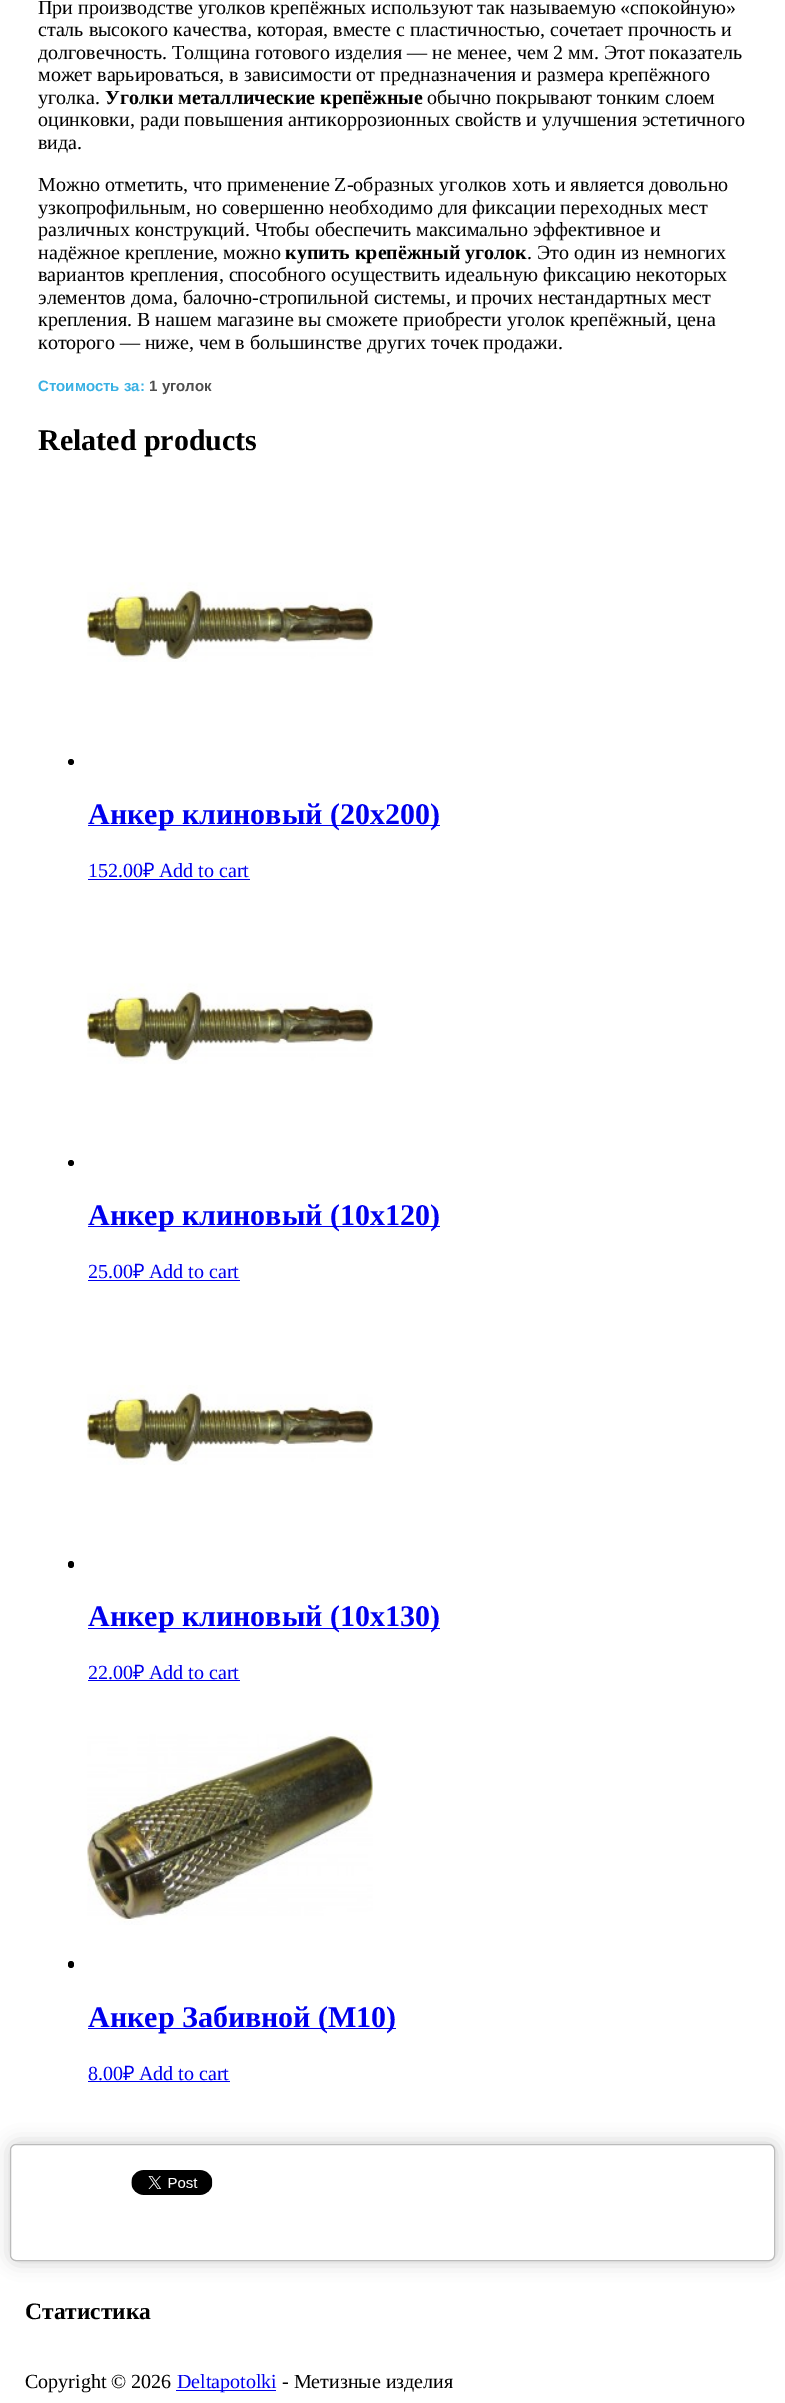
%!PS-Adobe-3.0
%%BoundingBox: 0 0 785 2403
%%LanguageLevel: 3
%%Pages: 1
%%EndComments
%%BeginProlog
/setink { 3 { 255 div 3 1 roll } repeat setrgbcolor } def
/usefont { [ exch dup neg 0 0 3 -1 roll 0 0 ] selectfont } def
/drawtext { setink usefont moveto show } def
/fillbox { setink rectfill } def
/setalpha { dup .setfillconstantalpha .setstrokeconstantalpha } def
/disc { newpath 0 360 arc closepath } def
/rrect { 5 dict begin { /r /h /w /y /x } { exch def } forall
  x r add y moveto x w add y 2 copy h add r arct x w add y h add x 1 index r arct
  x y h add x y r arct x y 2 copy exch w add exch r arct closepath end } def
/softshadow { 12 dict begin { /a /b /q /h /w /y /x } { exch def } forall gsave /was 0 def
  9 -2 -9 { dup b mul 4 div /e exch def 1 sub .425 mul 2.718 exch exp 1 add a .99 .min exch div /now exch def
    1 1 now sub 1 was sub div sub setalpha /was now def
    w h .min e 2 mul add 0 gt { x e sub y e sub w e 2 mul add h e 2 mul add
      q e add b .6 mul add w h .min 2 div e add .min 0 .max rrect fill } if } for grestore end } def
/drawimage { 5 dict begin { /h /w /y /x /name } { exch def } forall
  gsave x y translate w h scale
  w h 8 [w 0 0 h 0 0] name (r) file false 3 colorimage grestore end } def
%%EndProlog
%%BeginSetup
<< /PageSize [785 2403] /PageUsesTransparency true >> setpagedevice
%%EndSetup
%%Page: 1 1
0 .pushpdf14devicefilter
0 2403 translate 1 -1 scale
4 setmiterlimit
0 0 785 2403 255 255 255 fillbox
(При производстве уголков крепёжных используют так называемую «спокойную») 38 14 /LiberationSerif-Regular 20 0 0 0 drawtext
(сталь высокого качества, которая, вместе с пластичностью, сочетает прочность и) 38 36 /LiberationSerif-Regular 20 0 0 0 drawtext
(долговечность. Толщина готового изделия — не менее, чем 2 мм. Этот показатель) 38 59 /LiberationSerif-Regular 20 0 0 0 drawtext
(может варьироваться, в зависимости от предназначения и размера крепёжного) 38 81 /LiberationSerif-Regular 20 0 0 0 drawtext
(уголка.) 38 104 /LiberationSerif-Regular 20 0 0 0 drawtext
(Уголки металлические крепёжные) 105 104 /LiberationSerif-Bold 20 0 0 0 drawtext
(обычно покрывают тонким слоем) 427 104 /LiberationSerif-Regular 20 0 0 0 drawtext
(оцинковки, ради повышения антикоррозионных свойств и улучшения эстетичного) 38 126 /LiberationSerif-Regular 20 0 0 0 drawtext
(вида.) 38 149 /LiberationSerif-Regular 20 0 0 0 drawtext
(Можно отметить, что применение Z-образных уголков хоть и является довольно) 38 191 /LiberationSerif-Regular 20 0 0 0 drawtext
(узкопрофильным, но совершенно необходимо для фиксации переходных мест) 38 214 /LiberationSerif-Regular 20 0 0 0 drawtext
(различных конструкций. Чтобы обеспечить максимально эффективное и) 38 236 /LiberationSerif-Regular 20 0 0 0 drawtext
(надёжное крепление, можно) 38 259 /LiberationSerif-Regular 20 0 0 0 drawtext
(купить крепёжный уголок) 285 259 /LiberationSerif-Bold 20 0 0 0 drawtext
(. Это один из немногих) 527 259 /LiberationSerif-Regular 20 0 0 0 drawtext
(вариантов крепления, способного осуществить идеальную фиксацию некоторых) 38 281 /LiberationSerif-Regular 20 0 0 0 drawtext
(элементов дома, балочно-стропильной системы, и прочих нестандартных мест) 38 304 /LiberationSerif-Regular 20 0 0 0 drawtext
(крепления. В нашем магазине вы сможете приобрести уголок крепёжный, цена) 38 326 /LiberationSerif-Regular 20 0 0 0 drawtext
(которого — ниже, чем в большинстве других точек продажи.) 38 349 /LiberationSerif-Regular 20 0 0 0 drawtext
(Стоимость за:) 38 391 /LiberationSans-Bold 15 56 176 227 drawtext
(1 уголок) 149 391 /LiberationSans-Bold 15 77 77 77 drawtext
(Related products) 38 450 /LiberationSerif-Bold 30 0 0 0 drawtext
71 762 3 disc fill
(assets/img1.rgb) 87 582 286 80 drawimage
88 825 352 1 0 0 238 fillbox
(Анкер клиновый \(20х200\)) 88 824 /LiberationSerif-Bold 30 0 0 238 drawtext
(152.00) 88 877 /LiberationSerif-Regular 20 0 0 238 drawtext
88 879 162 1 0 0 238 fillbox
(₽) 143 877 /NotoSans-Regular 20 0 0 238 drawtext
(Add to cart) 159 877 /LiberationSerif-Regular 20 0 0 238 drawtext
0 0 0 setink
71 1163 3 disc fill
(assets/img2.rgb) 87 983 286 81 drawimage
88 1226 352 1 0 0 238 fillbox
(Анкер клиновый \(10х120\)) 88 1225 /LiberationSerif-Bold 30 0 0 238 drawtext
(25.00) 88 1278 /LiberationSerif-Regular 20 0 0 238 drawtext
88 1280 152 1 0 0 238 fillbox
(₽) 133 1278 /NotoSans-Regular 20 0 0 238 drawtext
(Add to cart) 149 1278 /LiberationSerif-Regular 20 0 0 238 drawtext
0 0 0 setink
68 1561 6 7 3 rrect fill
(assets/img3.rgb) 87 1385 286 80 drawimage
88 1628 352 1 0 0 238 fillbox
(Анкер клиновый \(10х130\)) 88 1626 /LiberationSerif-Bold 30 0 0 238 drawtext
(22.00) 88 1679 /LiberationSerif-Regular 20 0 0 238 drawtext
88 1680 152 1 0 0 238 fillbox
(₽) 133 1679 /NotoSans-Regular 20 0 0 238 drawtext
(Add to cart) 149 1679 /LiberationSerif-Regular 20 0 0 238 drawtext
0 0 0 setink
68 1961 6 7 3 rrect fill
(assets/img4.rgb) 87 1730 286 195 drawimage
88 2028 308 1 0 0 238 fillbox
(Анкер Забивной \(М10\)) 88 2027 /LiberationSerif-Bold 30 0 0 238 drawtext
(8.00) 88 2080 /LiberationSerif-Regular 20 0 0 238 drawtext
88 2081 142 1 0 0 238 fillbox
(₽) 123 2080 /NotoSans-Regular 20 0 0 238 drawtext
(Add to cart) 139 2080 /LiberationSerif-Regular 20 0 0 238 drawtext
gsave
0 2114 moveto 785 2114 lineto 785 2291 lineto 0 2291 lineto closepath 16 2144 moveto 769 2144 lineto 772.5 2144 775 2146.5 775 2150 curveto 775 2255 lineto 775 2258.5 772.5 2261 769 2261 curveto 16 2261 lineto 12.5 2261 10 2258.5 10 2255 curveto 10 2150 lineto 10 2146.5 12.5 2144 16 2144 curveto closepath eoclip newpath
0 0 0 setink
11 2144 765 117 6 9.5 0.2 softshadow
grestore
187 187 187 setink
10.5 2144.5 764 116 5.5 rrect stroke
(assets/img5.rgb) 131 2170 82 25 drawimage
(Статистика) 25 2319 /LiberationSerif-Bold 23.5 0 0 0 drawtext
(Copyright © 2026) 25 2388 /LiberationSerif-Regular 20 0 0 0 drawtext
176 2390 100 1 0 0 238 fillbox
(Deltapotolki) 177 2388 /LiberationSerif-Regular 20 0 0 238 drawtext
(- Метизные изделия) 282 2388 /LiberationSerif-Regular 20 0 0 0 drawtext
.poppdf14devicefilter showpage
%%EOF
